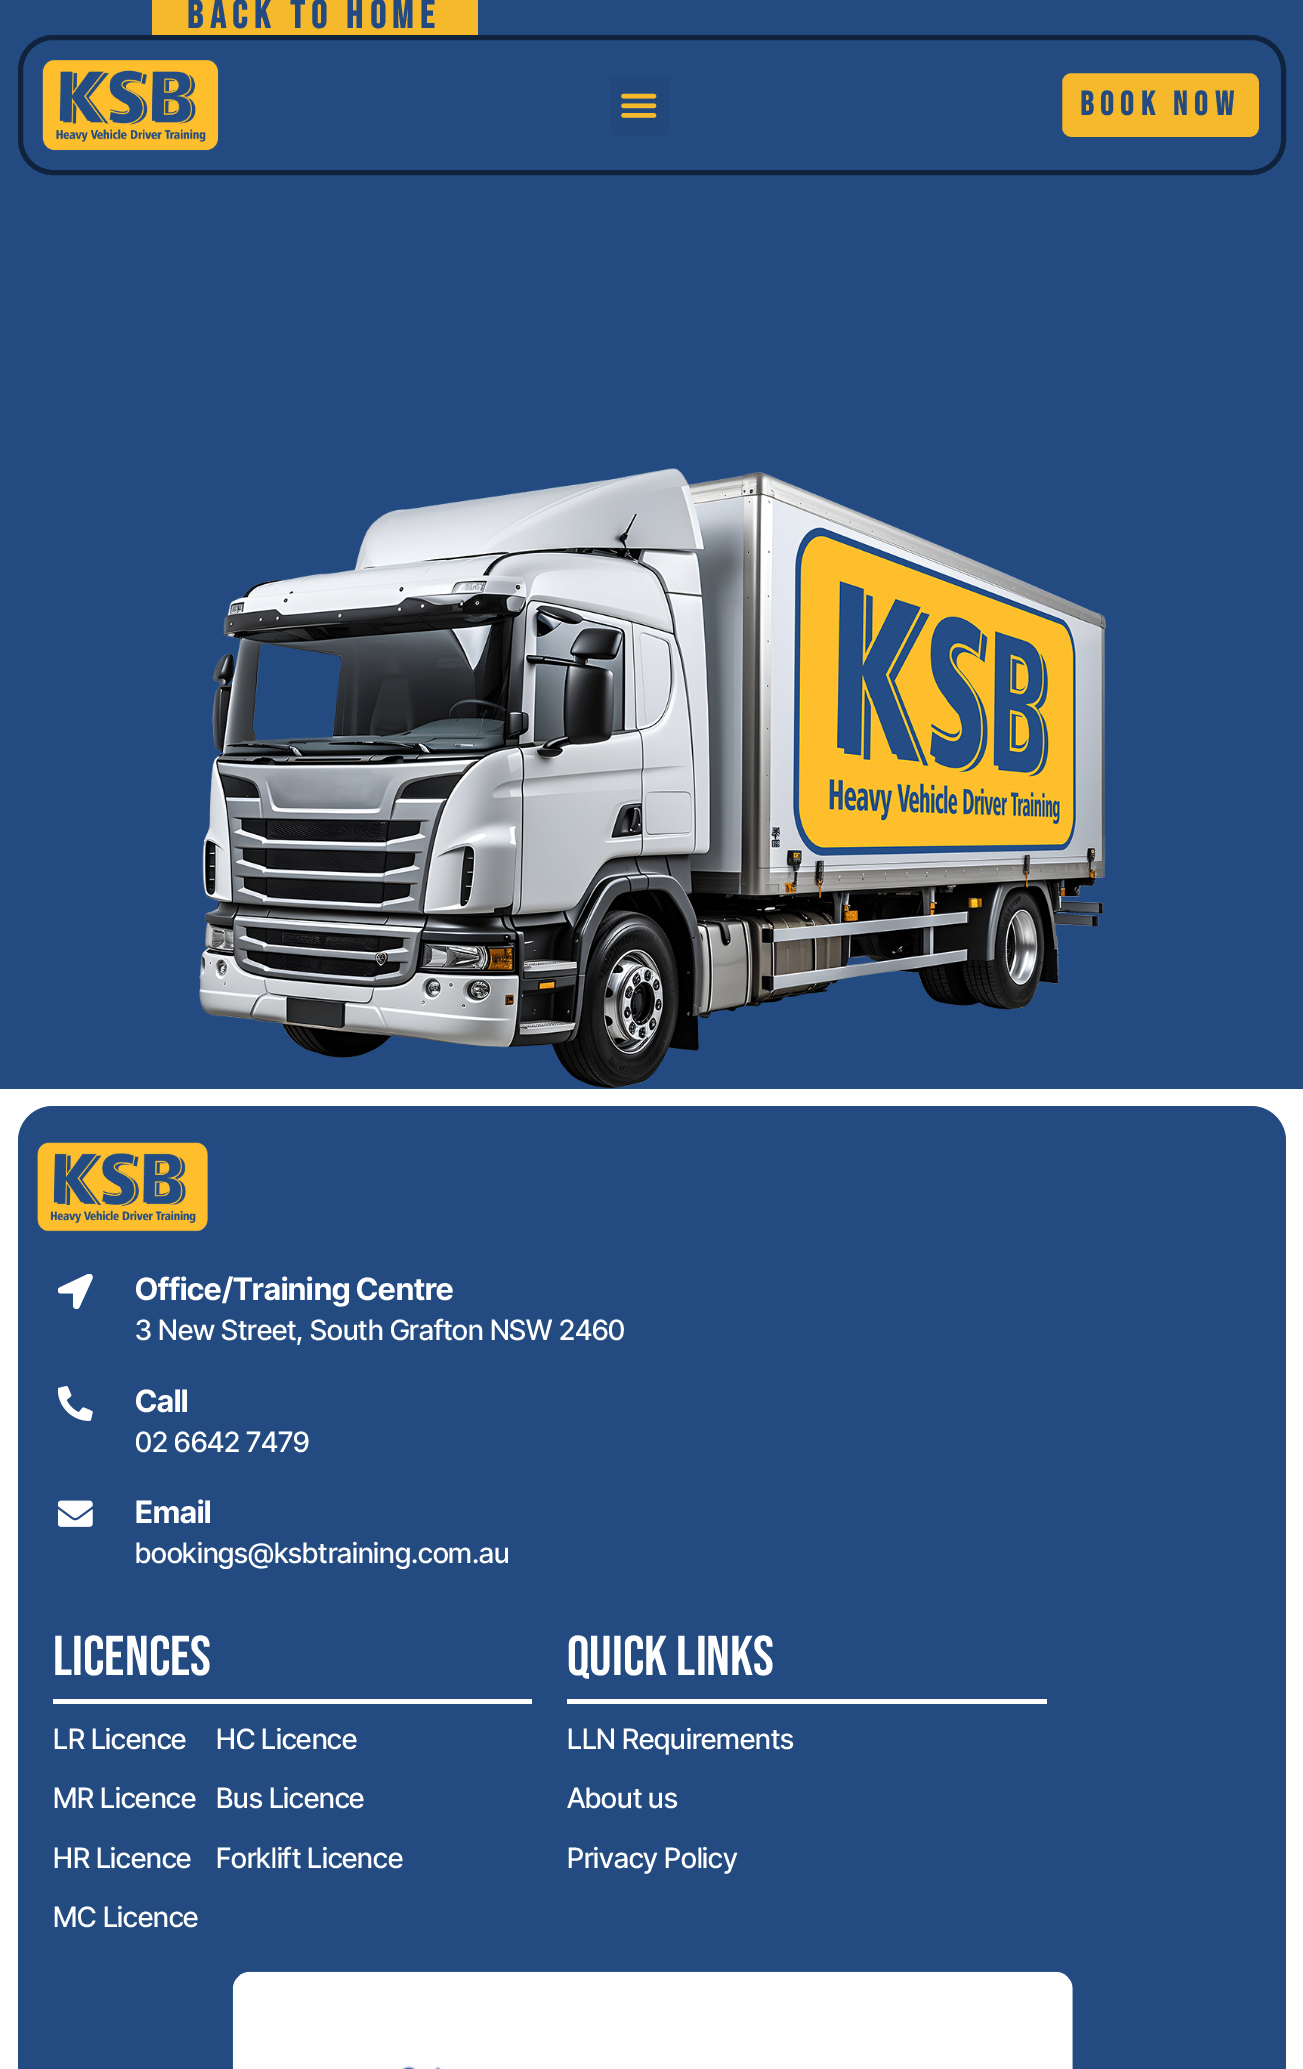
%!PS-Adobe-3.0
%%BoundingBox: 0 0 1303 2069
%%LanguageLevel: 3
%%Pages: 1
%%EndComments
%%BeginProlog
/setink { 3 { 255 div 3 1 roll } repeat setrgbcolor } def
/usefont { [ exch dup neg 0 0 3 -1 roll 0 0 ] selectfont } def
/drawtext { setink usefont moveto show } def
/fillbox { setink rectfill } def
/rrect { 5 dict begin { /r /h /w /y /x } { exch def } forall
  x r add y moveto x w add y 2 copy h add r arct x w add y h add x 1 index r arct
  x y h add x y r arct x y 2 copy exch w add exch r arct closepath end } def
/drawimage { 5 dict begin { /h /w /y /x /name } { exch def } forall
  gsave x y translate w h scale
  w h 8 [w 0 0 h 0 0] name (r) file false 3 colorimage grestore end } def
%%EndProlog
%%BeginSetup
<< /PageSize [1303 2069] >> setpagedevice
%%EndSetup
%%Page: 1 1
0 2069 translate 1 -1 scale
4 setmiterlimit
0 0 1303 2069 35 75 129 fillbox
152 0 326 35 246 185 43 fillbox
/BebasNeue-Bold 39.25 usefont
35 75 129 setink
187 28 moveto 6.75 0 (BACK TO HOME) ashow
(assets/img1.rgb) 199 468 907 620 drawimage
16 35 61 setink
5 setlinewidth
20.5 37.5 1263 135 32.5 rrect stroke
(assets/img2.rgb) 42 58 178 93 drawimage
33 71 123 setink
611 77 58 58 5 rrect fill
(assets/img3.rgb) 621 93 36 25 drawimage
246 185 43 setink
1059.5 70.5 202 69 11.5 rrect gsave fill grestore
35 75 129 setink
stroke
/BebasNeue-Bold 33.5 usefont
1080 115 moveto 6.75 0 (BOOK NOW) ashow
0 1089 1303 980 255 255 255 fillbox
35 75 129 setink
18 1106 1268 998 35 rrect fill
(assets/img4.rgb) 36 1141 173 92 drawimage
gsave
58 1274 35 35 rectclip
255 255 255 setink
88 1274 moveto 59.5 1287.5 lineto 56.5 1289 57.5 1293.5 61 1293.5 curveto 73 1293.5 lineto 73 1305.5 lineto 73 1309 78 1310.5 79.5 1307 curveto 92.5 1278.5 lineto 93.5 1276 91 1273 88 1274 curveto closepath fill
grestore
(Office/Training Centre) 135 1300 /InterTight-Bold 30.75 255 255 255 drawtext
(3 New Street, South Grafton NSW 2460) 135 1340 /InterTight-Medium 28 255 255 255 drawtext
(assets/img5.rgb) 58 1386 35 35 drawimage
(Call) 135 1412 /InterTight-Bold 30.75 255 255 255 drawtext
(02 6642 7479) 135 1452 /InterTight-Medium 28 255 255 255 drawtext
(assets/img6.rgb) 58 1500 35 27 drawimage
(Email) 135 1523 /InterTight-Bold 30.75 255 255 255 drawtext
(bookings@ksbtraining.com.au) 135 1563 /InterTight-Medium 28 255 255 255 drawtext
(Licences) 53 1675 /BebasNeue-Regular 56 255 255 255 drawtext
53 1699 479 5 255 255 255 fillbox
(LR Licence) 53 1749 /InterTight-Medium 28 255 255 255 drawtext
(MR Licence) 53 1808 /InterTight-Medium 28 255 255 255 drawtext
(HR Licence) 53 1868 /InterTight-Medium 28 255 255 255 drawtext
(MC Licence) 53 1927 /InterTight-Medium 28 255 255 255 drawtext
(HC Licence) 216 1749 /InterTight-Medium 28 255 255 255 drawtext
(Bus Licence) 216 1808 /InterTight-Medium 28 255 255 255 drawtext
(Forklift Licence) 216 1868 /InterTight-Medium 28 255 255 255 drawtext
(Quick Links) 567 1675 /BebasNeue-Regular 56 255 255 255 drawtext
567 1699 480 5 255 255 255 fillbox
(LLN Requirements) 567 1749 /InterTight-Medium 28 255 255 255 drawtext
(About us) 567 1808 /InterTight-Medium 28 255 255 255 drawtext
(Privacy Policy) 567 1868 /InterTight-Medium 28 255 255 255 drawtext
(assets/img7.rgb) 232 1971 841 98 drawimage
showpage
%%EOF
